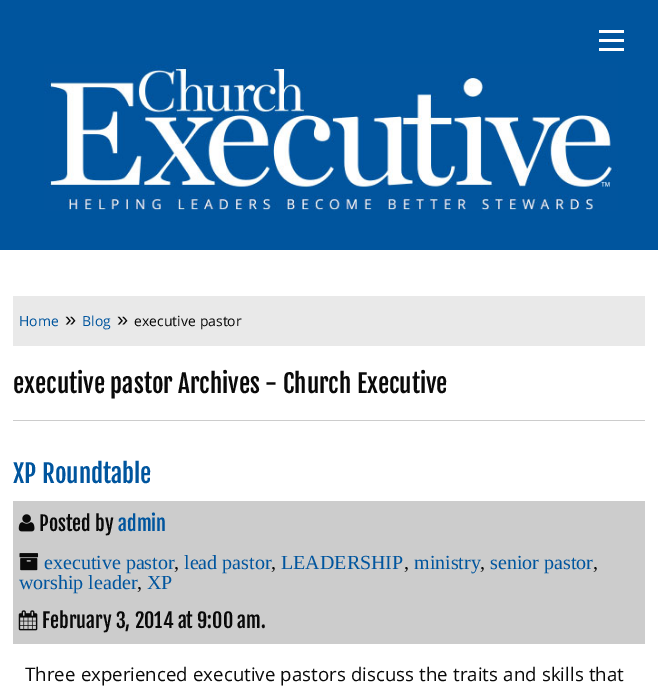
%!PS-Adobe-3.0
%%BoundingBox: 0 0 658 686
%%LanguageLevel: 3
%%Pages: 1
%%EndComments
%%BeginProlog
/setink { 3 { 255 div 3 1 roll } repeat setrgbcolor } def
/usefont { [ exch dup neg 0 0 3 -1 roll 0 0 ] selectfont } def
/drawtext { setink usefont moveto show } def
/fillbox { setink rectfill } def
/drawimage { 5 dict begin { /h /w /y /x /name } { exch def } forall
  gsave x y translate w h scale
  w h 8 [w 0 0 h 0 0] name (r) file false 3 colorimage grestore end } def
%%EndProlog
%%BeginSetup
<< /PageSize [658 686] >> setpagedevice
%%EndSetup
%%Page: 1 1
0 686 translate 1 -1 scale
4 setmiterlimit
0 0 658 686 255 255 255 fillbox
0 0 658 250 0 85 158 fillbox
599 48 25 3 255 255 255 fillbox
599 39 25 3 255 255 255 fillbox
599 30 25 3 255 255 255 fillbox
(assets/img1.rgb) 44 64 574 147 drawimage
13 296 632 50 233 233 233 fillbox
(Home) 19 326 /Khula-Regular 15 0 85 158 drawtext
(») 65 326 /LiberationSans-Regular 20 10 10 10 drawtext
(Blog) 82 326 /Khula-Regular 15 0 85 158 drawtext
(») 117 326 /LiberationSans-Regular 20 10 10 10 drawtext
(executive pastor) 134 326 /Khula-Regular 15 10 10 10 drawtext
(executive pastor Archives - Church Executive) 13 393 /FjallaOne-Regular 25 10 10 10 drawtext
13 420 632 1 204 204 204 fillbox
(XP Roundtable) 13 483 /FjallaOne-Regular 25 0 85 158 drawtext
13 501 632 143 204 204 204 fillbox
(assets/img2.rgb) 18 514 17 18 drawimage
(Posted by) 39 531 /FjallaOne-Regular 20 10 10 10 drawtext
(admin) 118 531 /FjallaOne-Regular 20 0 85 158 drawtext
(assets/img3.rgb) 19 553 20 18 drawimage
(executive pastor) 44 569 /LiberationSerif-Regular 20 0 85 158 drawtext
(,) 174 569 /LiberationSerif-Regular 20 10 10 10 drawtext
(lead pastor) 184 569 /LiberationSerif-Regular 20 0 85 158 drawtext
(,) 271 569 /LiberationSerif-Regular 20 10 10 10 drawtext
(LEADERSHIP) 281 569 /LiberationSerif-Regular 20 0 85 158 drawtext
(,) 404 569 /LiberationSerif-Regular 20 10 10 10 drawtext
(ministry) 414 569 /LiberationSerif-Regular 20 0 85 158 drawtext
(,) 480 569 /LiberationSerif-Regular 20 10 10 10 drawtext
(senior pastor) 490 569 /LiberationSerif-Regular 20 0 85 158 drawtext
(,) 593 569 /LiberationSerif-Regular 20 10 10 10 drawtext
(worship leader) 19 589 /LiberationSerif-Regular 20 0 85 158 drawtext
(,) 137 589 /LiberationSerif-Regular 20 10 10 10 drawtext
(XP) 147 589 /LiberationSerif-Regular 20 0 85 158 drawtext
(assets/img4.rgb) 18 610 20 21 drawimage
(February 3, 2014 at 9:00 am.) 42 628 /FjallaOne-Regular 20 10 10 10 drawtext
(Three experienced executive pastors discuss the traits and skills that) 25 681 /Khula-Regular 20 10 10 10 drawtext
showpage
%%EOF
